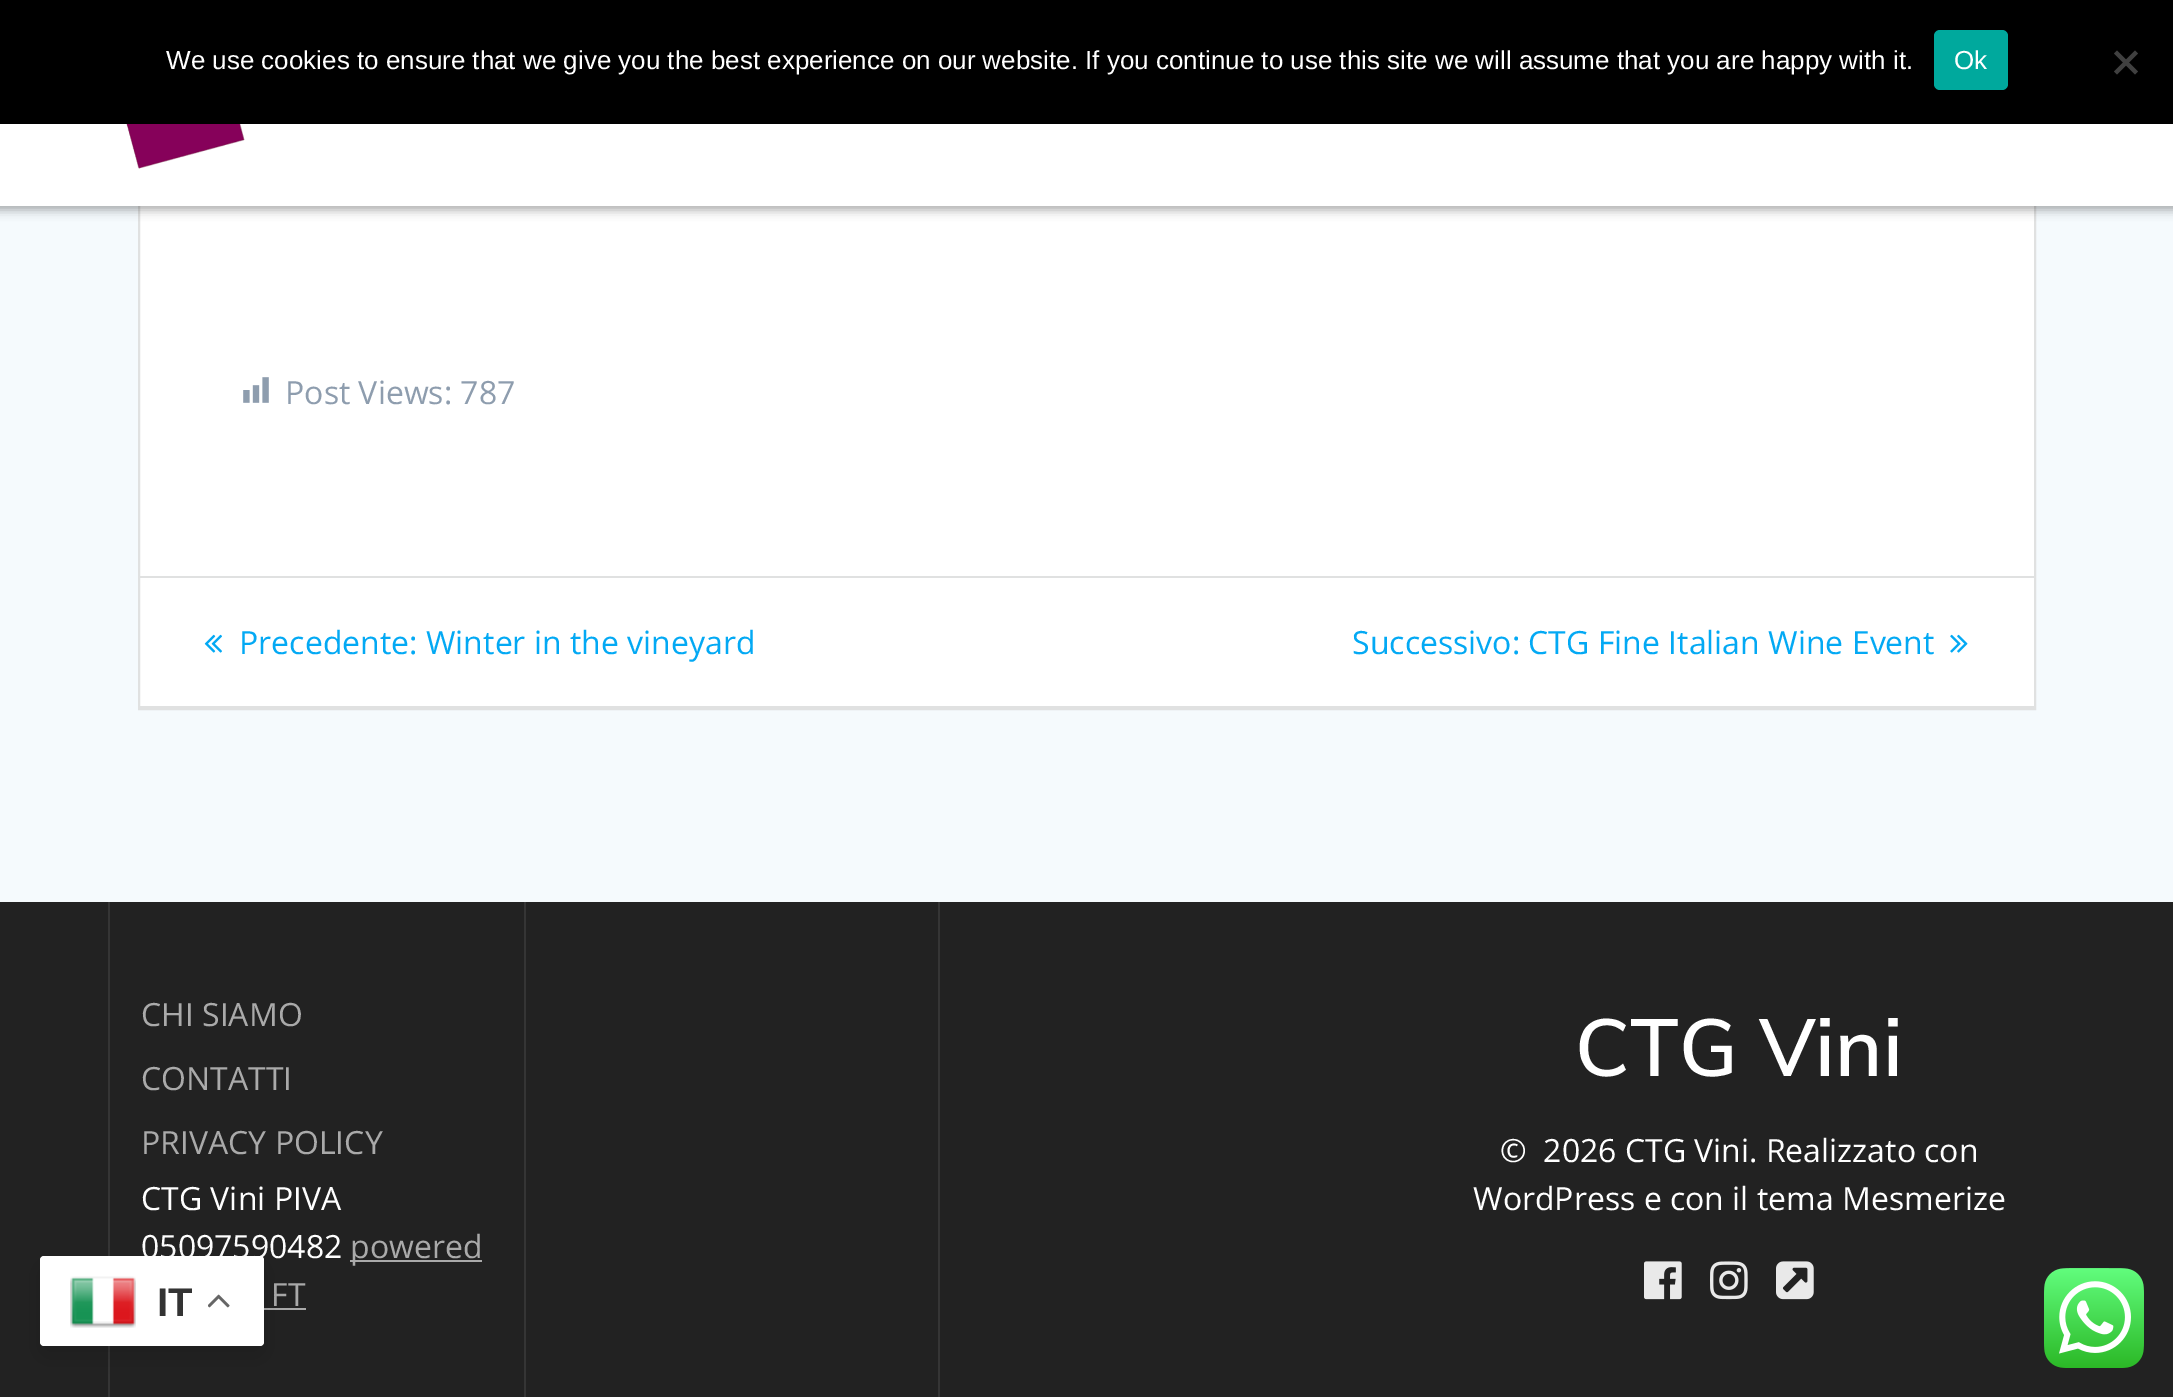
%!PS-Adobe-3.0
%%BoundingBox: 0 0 2173 1397
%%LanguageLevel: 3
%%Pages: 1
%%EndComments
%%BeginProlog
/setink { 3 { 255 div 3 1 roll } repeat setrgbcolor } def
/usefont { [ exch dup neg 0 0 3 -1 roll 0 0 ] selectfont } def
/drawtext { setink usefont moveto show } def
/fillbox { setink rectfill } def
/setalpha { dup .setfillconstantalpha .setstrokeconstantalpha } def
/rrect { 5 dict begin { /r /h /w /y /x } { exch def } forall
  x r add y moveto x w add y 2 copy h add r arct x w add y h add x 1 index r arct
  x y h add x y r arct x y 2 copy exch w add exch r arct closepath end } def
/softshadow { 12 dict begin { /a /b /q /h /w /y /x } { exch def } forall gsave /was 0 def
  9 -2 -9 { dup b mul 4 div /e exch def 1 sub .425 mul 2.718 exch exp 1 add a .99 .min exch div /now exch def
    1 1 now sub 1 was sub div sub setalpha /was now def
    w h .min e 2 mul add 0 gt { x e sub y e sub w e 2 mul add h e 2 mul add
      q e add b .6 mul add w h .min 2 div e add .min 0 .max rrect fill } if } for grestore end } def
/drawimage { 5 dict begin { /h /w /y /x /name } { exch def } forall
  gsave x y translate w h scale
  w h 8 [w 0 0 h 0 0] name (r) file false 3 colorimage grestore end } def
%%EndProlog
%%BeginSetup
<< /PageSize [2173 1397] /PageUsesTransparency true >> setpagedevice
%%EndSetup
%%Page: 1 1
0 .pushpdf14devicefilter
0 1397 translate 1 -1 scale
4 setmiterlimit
0 0 2173 1397 34 34 34 fillbox
0 206 2173 696 245 250 253 fillbox
140 206 1894 500 255 255 255 fillbox
224 225 225 setink
2 setlinewidth
139 -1 1896 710 rectstroke
0 0 0 setink
-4 -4 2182 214 0 5 0.33 softshadow
0 124 2173 82 255 255 255 fillbox
(assets/img1.rgb) 126 124 119 45 drawimage
0 0 2173 124 0 0 0 fillbox
(We use cookies to ensure that we give you the best experience on our website. If you continue to use this site we will assume that you are happy with it.) 166 69 /LiberationSans-Regular 26 255 255 255 drawtext
0 169 157 setink
1934 30 74 60 6 rrect fill
(Ok) 1954 69 /LiberationSans-Regular 26 255 255 255 drawtext
64 64 64 setink
2135 50.5 moveto 2138 53.5 lineto 2117 74.5 lineto 2114 71.5 lineto closepath fill
2114 53.5 moveto 2117 50.5 lineto 2138 71.5 lineto 2135 74.5 lineto closepath fill
(assets/img2.rgb) 243 377 26 26 drawimage
(Post Views: 787) 285 404 /OpenSans-Regular 32 142 157 174 drawtext
140 576 1894 2 224 225 225 fillbox
140 706 1894 2 224 225 225 fillbox
(assets/img3.rgb) 204 634 18 19 drawimage
(Precedente: Winter in the vineyard) 239 654 /OpenSans-Regular 32 3 169 244 drawtext
(Successivo: CTG Fine Italian Wine Event) 1352 654 /OpenSans-Regular 32 3 169 244 drawtext
(assets/img4.rgb) 1950 634 18 19 drawimage
108 902 2 495 53 53 53 fillbox
(CHI SIAMO) 141 1026 /OpenSans-Regular 32 170 170 170 drawtext
(CONTATTI) 141 1090 /OpenSans-Regular 32 170 170 170 drawtext
(PRIVACY POLICY) 141 1154 /OpenSans-Regular 32 170 170 170 drawtext
(CTG Vini PIVA) 141 1210 /OpenSans-Regular 32 255 255 255 drawtext
(05097590482) 141 1258 /OpenSans-Regular 32 255 255 255 drawtext
350 1260 132 2 170 170 170 fillbox
(powered) 350 1258 /OpenSans-Regular 32 170 170 170 drawtext
(FT) 271 1306 /OpenSans-Regular 32 170 170 170 drawtext
264 1308 42 2 170 170 170 fillbox
524 902 2 495 53 53 53 fillbox
938 902 2 495 53 53 53 fillbox
(CTG Vini) 1575 1076 /Muli-SemiBold 80 255 255 255 drawtext
(©  2026 CTG Vini. Realizzato con) 1500 1162 /OpenSans-Regular 32 255 255 255 drawtext
(WordPress e con il tema Mesmerize) 1473 1210 /OpenSans-Regular 32 255 255 255 drawtext
(assets/img5.rgb) 1644 1261 38 39 drawimage
(assets/img6.rgb) 1710 1261 38 39 drawimage
(assets/img7.rgb) 1776 1261 38 39 drawimage
0 0 0 setink
40 1266 224 90 4 15 0.15 softshadow
255 255 255 setink
40 1256 224 90 4 rrect fill
(assets/img8.rgb) 70 1276 66 52 drawimage
(IT) 157 1316 /LiberationSans-Bold 40 51 51 51 drawtext
(assets/img9.rgb) 208 1294 22 14 drawimage
(assets/img10.rgb) 2044 1268 100 100 drawimage
.poppdf14devicefilter showpage
%%EOF
